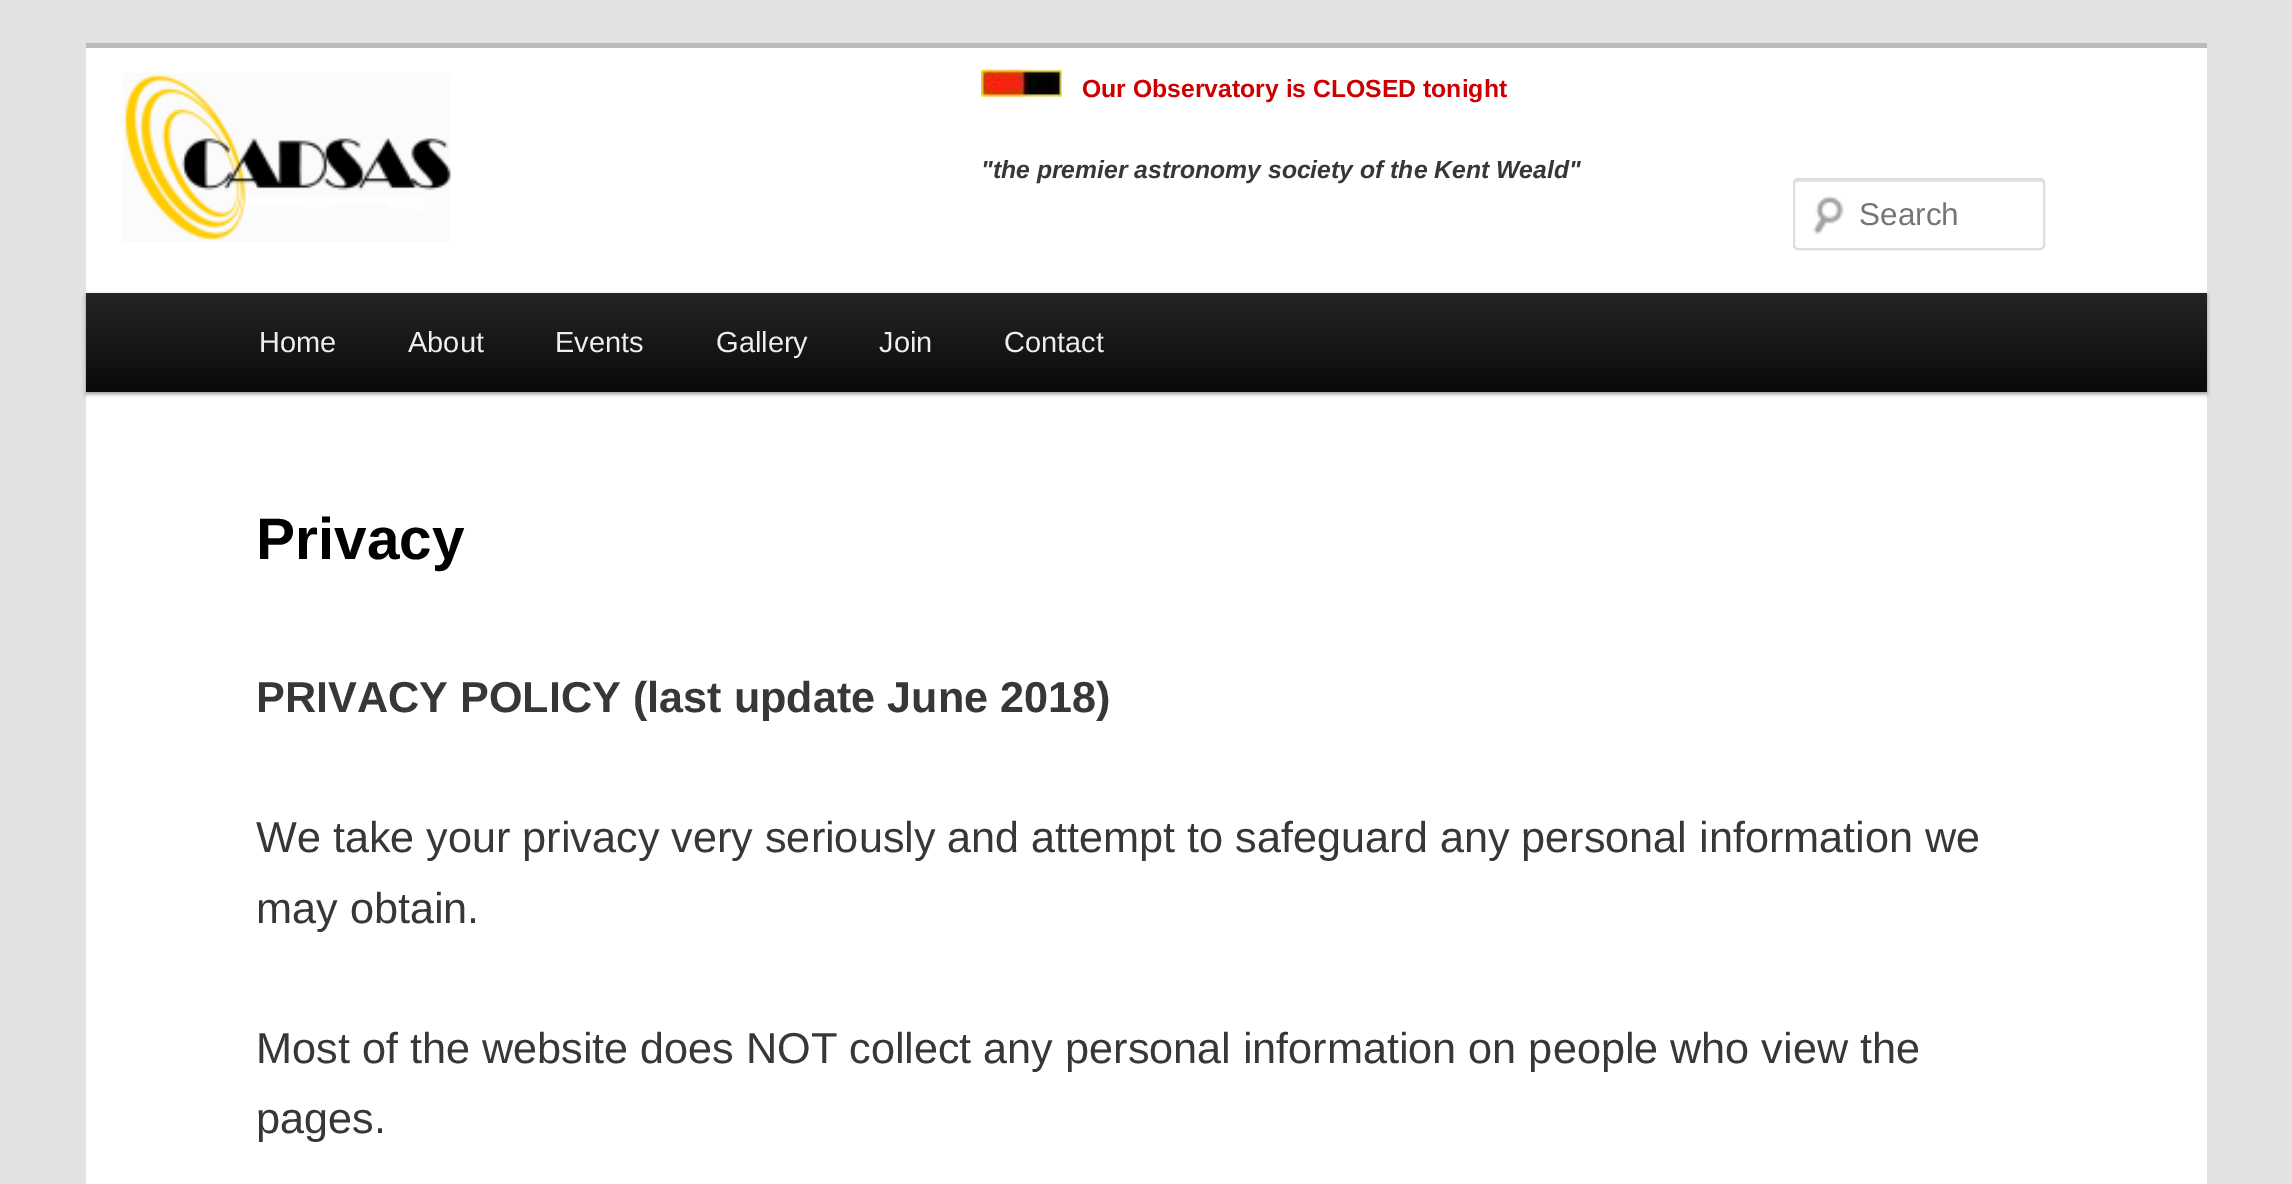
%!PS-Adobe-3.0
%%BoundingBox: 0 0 2292 1184
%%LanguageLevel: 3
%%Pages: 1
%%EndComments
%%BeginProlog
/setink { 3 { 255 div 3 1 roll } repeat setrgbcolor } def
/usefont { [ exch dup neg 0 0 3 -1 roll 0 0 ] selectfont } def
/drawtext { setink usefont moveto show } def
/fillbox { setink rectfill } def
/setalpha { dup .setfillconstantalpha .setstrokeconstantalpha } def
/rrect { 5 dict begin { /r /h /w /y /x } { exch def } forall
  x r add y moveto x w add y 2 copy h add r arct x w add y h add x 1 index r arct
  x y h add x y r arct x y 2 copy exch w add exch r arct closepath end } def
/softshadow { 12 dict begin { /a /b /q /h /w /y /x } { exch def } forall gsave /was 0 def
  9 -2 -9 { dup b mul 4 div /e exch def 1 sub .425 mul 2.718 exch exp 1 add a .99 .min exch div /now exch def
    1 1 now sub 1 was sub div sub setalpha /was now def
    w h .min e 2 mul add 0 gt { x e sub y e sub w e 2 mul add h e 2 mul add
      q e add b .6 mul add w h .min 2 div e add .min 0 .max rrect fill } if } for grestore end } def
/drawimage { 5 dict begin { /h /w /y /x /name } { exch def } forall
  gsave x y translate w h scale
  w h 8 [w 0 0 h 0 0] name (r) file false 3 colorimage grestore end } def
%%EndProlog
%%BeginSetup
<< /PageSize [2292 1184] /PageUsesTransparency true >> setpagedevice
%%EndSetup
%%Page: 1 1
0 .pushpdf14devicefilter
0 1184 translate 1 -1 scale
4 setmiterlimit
0 0 2292 1184 226 226 226 fillbox
86 48 2121 1136 255 255 255 fillbox
86 43 2121 5 187 187 187 fillbox
(assets/img1.rgb) 123 73 328 169 drawimage
(assets/img2.rgb) 981 69 81 28 drawimage
(Our Observatory is CLOSED tonight) 1082 97 /LiberationSans-Bold 24.75 204 0 0 drawtext
("the premier astronomy society of the Kent Weald") 981 178 /LiberationSans-BoldItalic 24.75 55 55 55 drawtext
(assets/img3.rgb) 1813 195 31 40 drawimage
230 230 230 setink
1798 182 moveto 2041 182 lineto 2042 182 2043 183 2043 184 curveto 2043 182 2043 180 2041 180 curveto 1798 180 lineto 1796 180 1796 182 1796 184 curveto 1796 183 1797 182 1798 182 curveto closepath fill
221 221 221 setink
2 setlinewidth
1794 179 250 70 4 rrect stroke
(Search) 1859 225 /LiberationSans-Regular 31.5 117 117 117 drawtext
0 0 0 setink
86 295 2121 99 0 2 0.4 softshadow
gsave 86 293 moveto 2207 293 lineto 2207 392 lineto 86 392 lineto closepath clip newpath
<< /ShadingType 2 /ColorSpace /DeviceRGB /Coords [1146 292 1146 392] /Extend [true true] /Function << /FunctionType 2 /Domain [0 1] /C0 [0.145 0.145 0.145] /C1 [0.039 0.039 0.039] /N 1 >> >> shfill grestore
(Home) 259 352 /LiberationSans-Regular 29 238 238 238 drawtext
(About) 408 352 /LiberationSans-Regular 29 238 238 238 drawtext
(Events) 555 352 /LiberationSans-Regular 29 238 238 238 drawtext
(Gallery) 716 352 /LiberationSans-Regular 29 238 238 238 drawtext
(Join) 879 352 /LiberationSans-Regular 29 238 238 238 drawtext
(Contact) 1004 352 /LiberationSans-Regular 29 238 238 238 drawtext
(Privacy) 256 559 /LiberationSans-Bold 58.5 0 0 0 drawtext
(PRIVACY POLICY \(last update June 2018\)) 256 712 /LiberationSans-Bold 43.2 55 55 55 drawtext
(We take your privacy very seriously and attempt to safeguard any personal information we) 256 852 /LiberationSans-Regular 43.2 55 55 55 drawtext
(may obtain.) 256 923 /LiberationSans-Regular 43.2 55 55 55 drawtext
(Most of the website does NOT collect any personal information on people who view the) 256 1063 /LiberationSans-Regular 43.2 55 55 55 drawtext
(pages.) 256 1133 /LiberationSans-Regular 43.2 55 55 55 drawtext
.poppdf14devicefilter showpage
%%EOF
